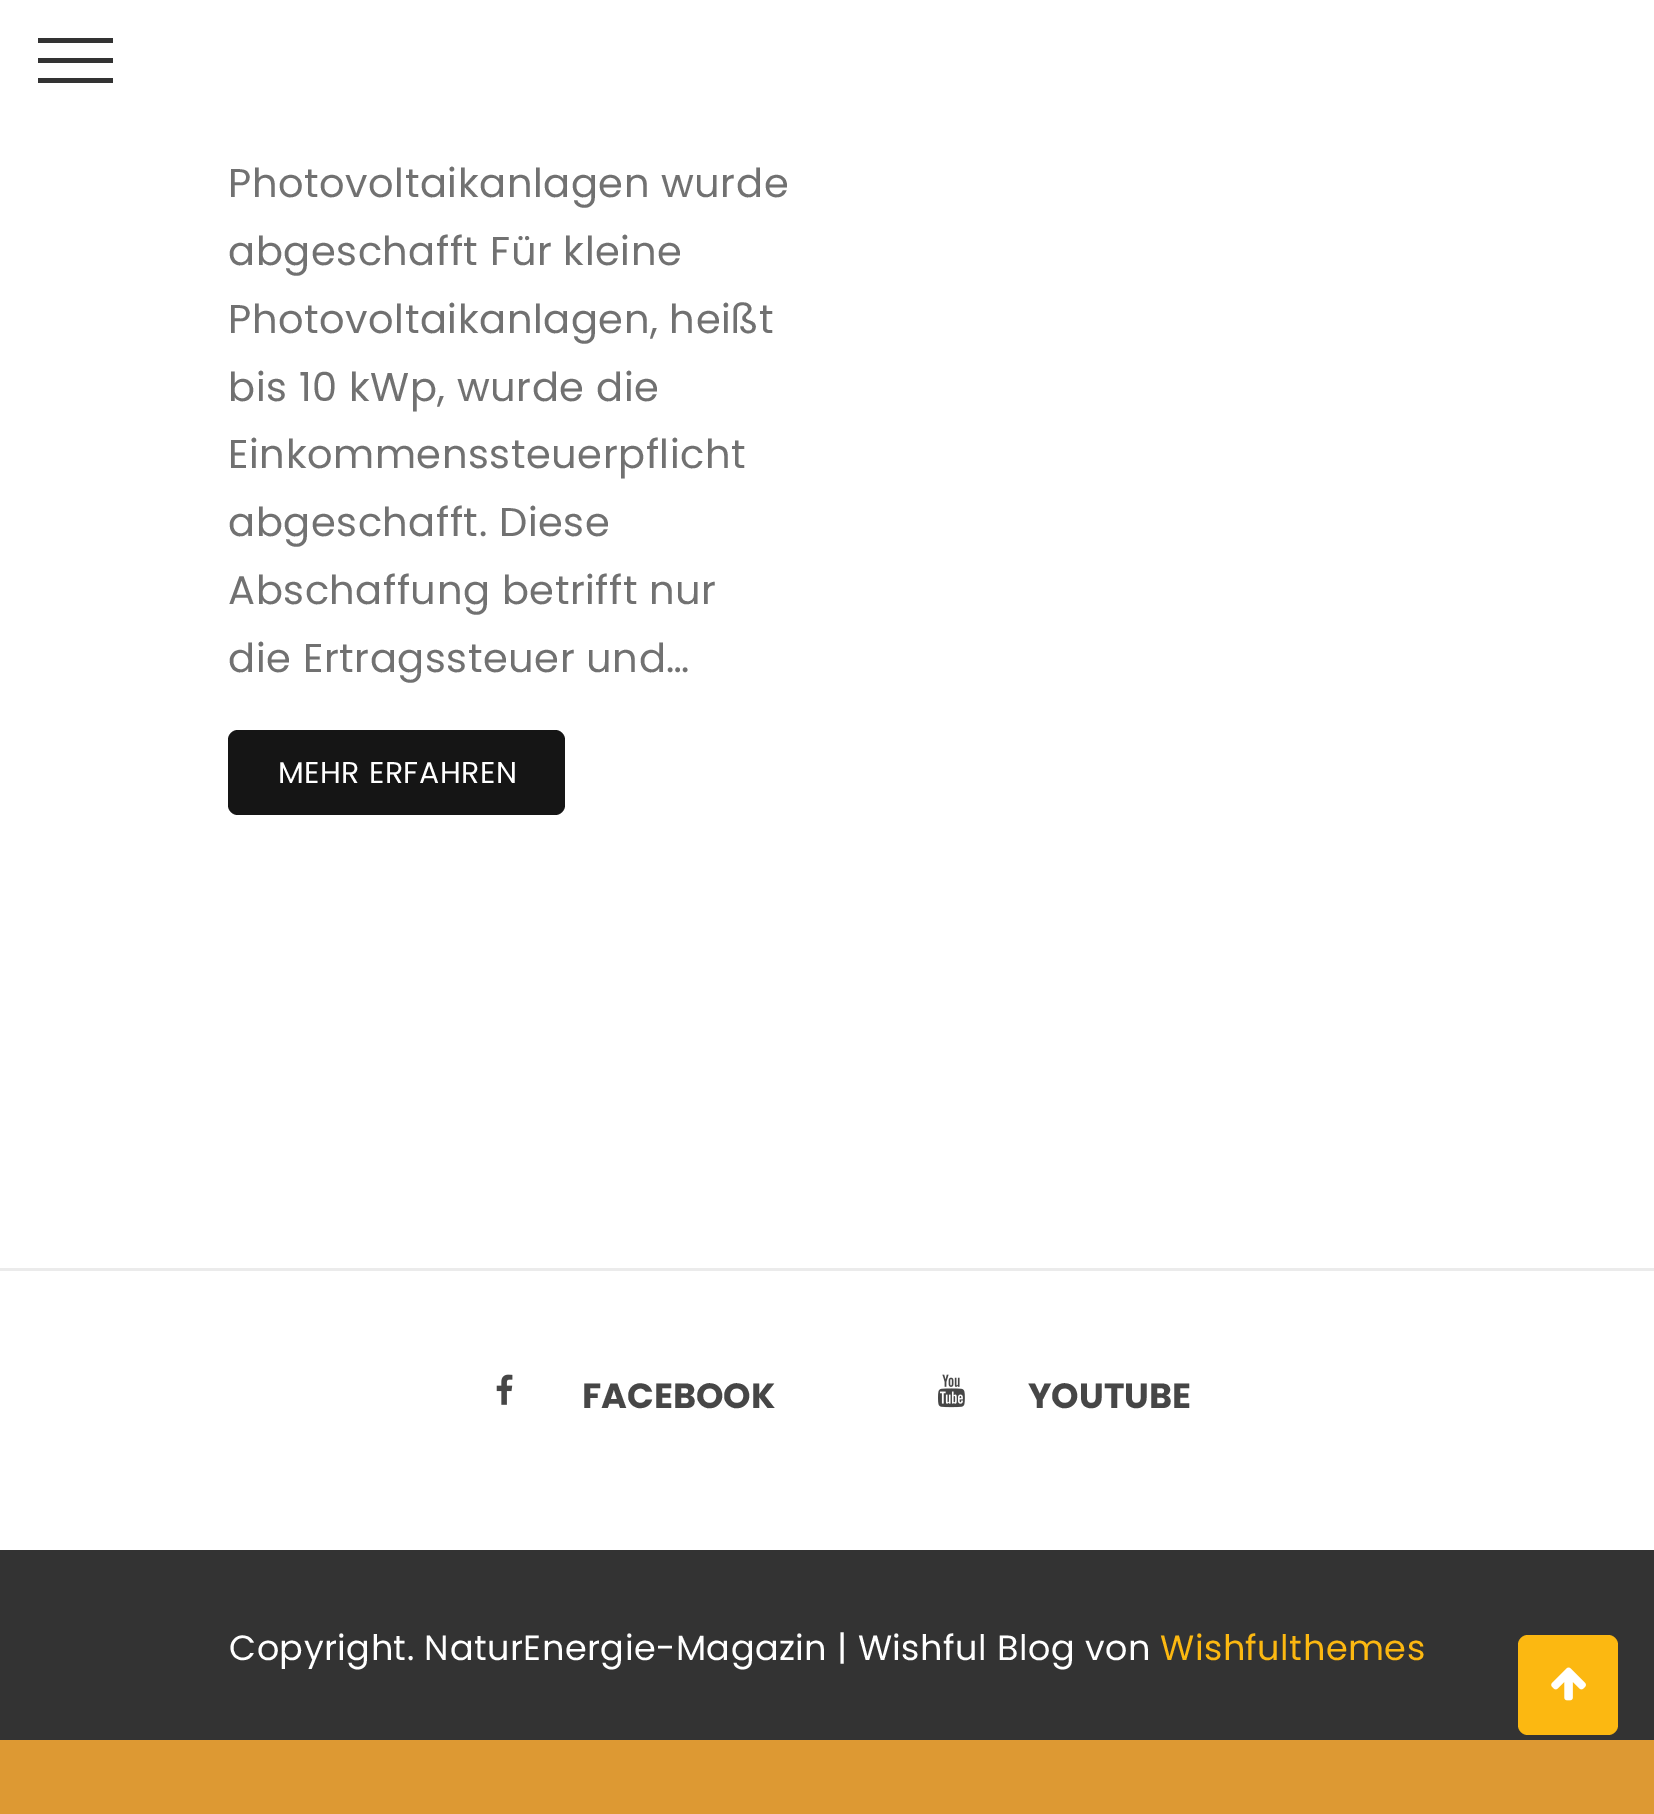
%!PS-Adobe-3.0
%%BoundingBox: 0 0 1654 1814
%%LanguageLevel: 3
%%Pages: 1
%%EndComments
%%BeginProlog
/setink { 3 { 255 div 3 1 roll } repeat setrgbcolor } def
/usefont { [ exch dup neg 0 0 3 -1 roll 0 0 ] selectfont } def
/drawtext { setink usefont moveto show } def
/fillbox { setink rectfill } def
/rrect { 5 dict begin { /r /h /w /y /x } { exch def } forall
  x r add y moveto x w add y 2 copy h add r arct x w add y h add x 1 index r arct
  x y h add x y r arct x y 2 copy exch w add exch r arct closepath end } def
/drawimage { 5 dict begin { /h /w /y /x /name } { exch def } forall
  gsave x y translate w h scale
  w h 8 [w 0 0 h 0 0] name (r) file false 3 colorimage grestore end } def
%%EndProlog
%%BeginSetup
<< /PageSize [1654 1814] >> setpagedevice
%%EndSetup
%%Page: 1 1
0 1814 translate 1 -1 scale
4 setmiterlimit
0 0 1654 1814 221 153 51 fillbox
0 0 1654 1268 255 255 255 fillbox
38 38 75 5 51 51 51 fillbox
38 58 75 5 51 51 51 fillbox
38 78 75 5 51 51 51 fillbox
/Poppins-Regular 40 usefont
113 113 113 setink
228 197 moveto 0.55 0 (Photovoltaikanlagen wurde) ashow
228 265 moveto 0.55 0 (abgeschafft Für kleine) ashow
228 333 moveto 0.55 0 (Photovoltaikanlagen, heißt) ashow
228 401 moveto 0.55 0 (bis 10 kWp, wurde die) ashow
228 468 moveto 0.55 0 (Einkommenssteuerpflicht) ashow
228 536 moveto 0.55 0 (abgeschafft. Diese) ashow
228 604 moveto 0.55 0 (Abschaffung betrifft nur) ashow
228 672 moveto 0.55 0 (die Ertragssteuer und…) ashow
21 21 21 setink
228 730 337 85 10 rrect fill
/Poppins-Regular 30 usefont
255 255 255 setink
278 783 moveto 0.5 0 (MEHR ERFAHREN) ashow
0 1271 1654 279 255 255 255 fillbox
0 1268 1654 3 235 235 235 fillbox
(assets/img1.rgb) 496 1374 17 31 drawimage
(FACEBOOK) 582 1408 /Poppins-Bold 35 70 70 70 drawtext
(assets/img2.rgb) 938 1374 27 34 drawimage
(YOUTUBE) 1028 1408 /Poppins-Bold 35 70 70 70 drawtext
0 1550 1654 190 51 51 51 fillbox
/Poppins-Regular 35 usefont
255 255 255 setink
229 1660 moveto 0.5 0 (Copyright. NaturEnergie-Magazin | Wishful Blog von) ashow
252 184 17 setink
1160 1660 moveto 0.5 0 (Wishfulthemes) ashow
1518 1635 100 100 10 rrect fill
(assets/img3.rgb) 1551 1667 35 34 drawimage
showpage
%%EOF
